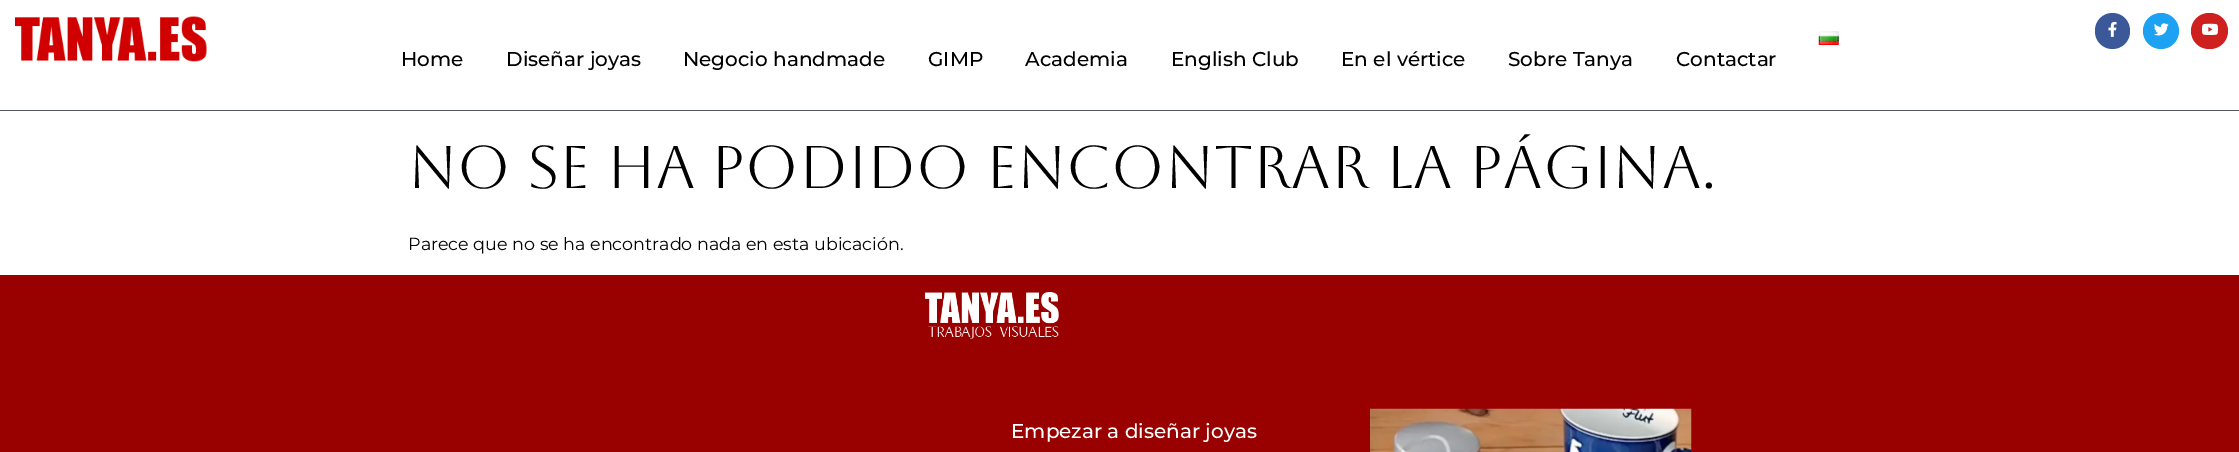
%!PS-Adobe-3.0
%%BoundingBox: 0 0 2239 452
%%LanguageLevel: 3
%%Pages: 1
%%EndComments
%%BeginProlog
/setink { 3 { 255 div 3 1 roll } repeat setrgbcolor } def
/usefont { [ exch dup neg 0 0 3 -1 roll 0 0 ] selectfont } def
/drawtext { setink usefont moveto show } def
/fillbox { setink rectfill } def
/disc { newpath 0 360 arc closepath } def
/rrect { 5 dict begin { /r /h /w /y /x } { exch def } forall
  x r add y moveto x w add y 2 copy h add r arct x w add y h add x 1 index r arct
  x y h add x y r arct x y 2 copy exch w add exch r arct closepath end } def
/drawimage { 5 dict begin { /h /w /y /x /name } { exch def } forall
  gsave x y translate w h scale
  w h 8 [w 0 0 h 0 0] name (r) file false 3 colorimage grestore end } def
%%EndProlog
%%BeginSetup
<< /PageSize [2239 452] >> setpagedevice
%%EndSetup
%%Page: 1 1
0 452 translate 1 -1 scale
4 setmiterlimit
0 0 2239 452 255 255 255 fillbox
0 110 2239 1 84 89 95 fillbox
(assets/img1.rgb) 15 16 192 46 drawimage
(assets/img2.rgb) 1818 31 21 14 drawimage
(Home) 401 66 /Montserrat-Medium 20 0 0 0 drawtext
(Diseñar joyas) 506 66 /Montserrat-Medium 20 0 0 0 drawtext
(Negocio handmade) 683 66 /Montserrat-Medium 20 0 0 0 drawtext
(GIMP) 928 66 /Montserrat-Medium 20 0 0 0 drawtext
(Academia) 1025 66 /Montserrat-Medium 20 0 0 0 drawtext
(English Club) 1171 66 /Montserrat-Medium 20 0 0 0 drawtext
(En el vértice) 1341 66 /Montserrat-Medium 20 0 0 0 drawtext
(Sobre Tanya) 1508 66 /Montserrat-Medium 20 0 0 0 drawtext
(Contactar) 1676 66 /Montserrat-Medium 20 0 0 0 drawtext
59 89 152 setink
2095 13 35 36 17.5 rrect fill
(assets/img3.rgb) 2108 21 9 16 drawimage
29 161 242 setink
2161 31 18 disc fill
(assets/img4.rgb) 2154 23 15 13 drawimage
205 32 31 setink
2191 13 37 36 18 rrect fill
(assets/img5.rgb) 2202 23 16 12 drawimage
(NO SE HA PODIDO ENCONTRAR LA PÁGINA.) 408 188 /Aboreto-Regular 60 0 0 0 drawtext
(Parece que no se ha encontrado nada en esta ubicación.) 408 250 /Montserrat-Regular 17.5 0 0 0 drawtext
0 275 2239 177 153 0 0 fillbox
(assets/img6.rgb) 925 292 134 47 drawimage
(Empezar a diseñar joyas) 1011 438 /Montserrat-Medium 20 255 255 255 drawtext
(assets/img7.rgb) 1370 408 322 44 drawimage
showpage
%%EOF
